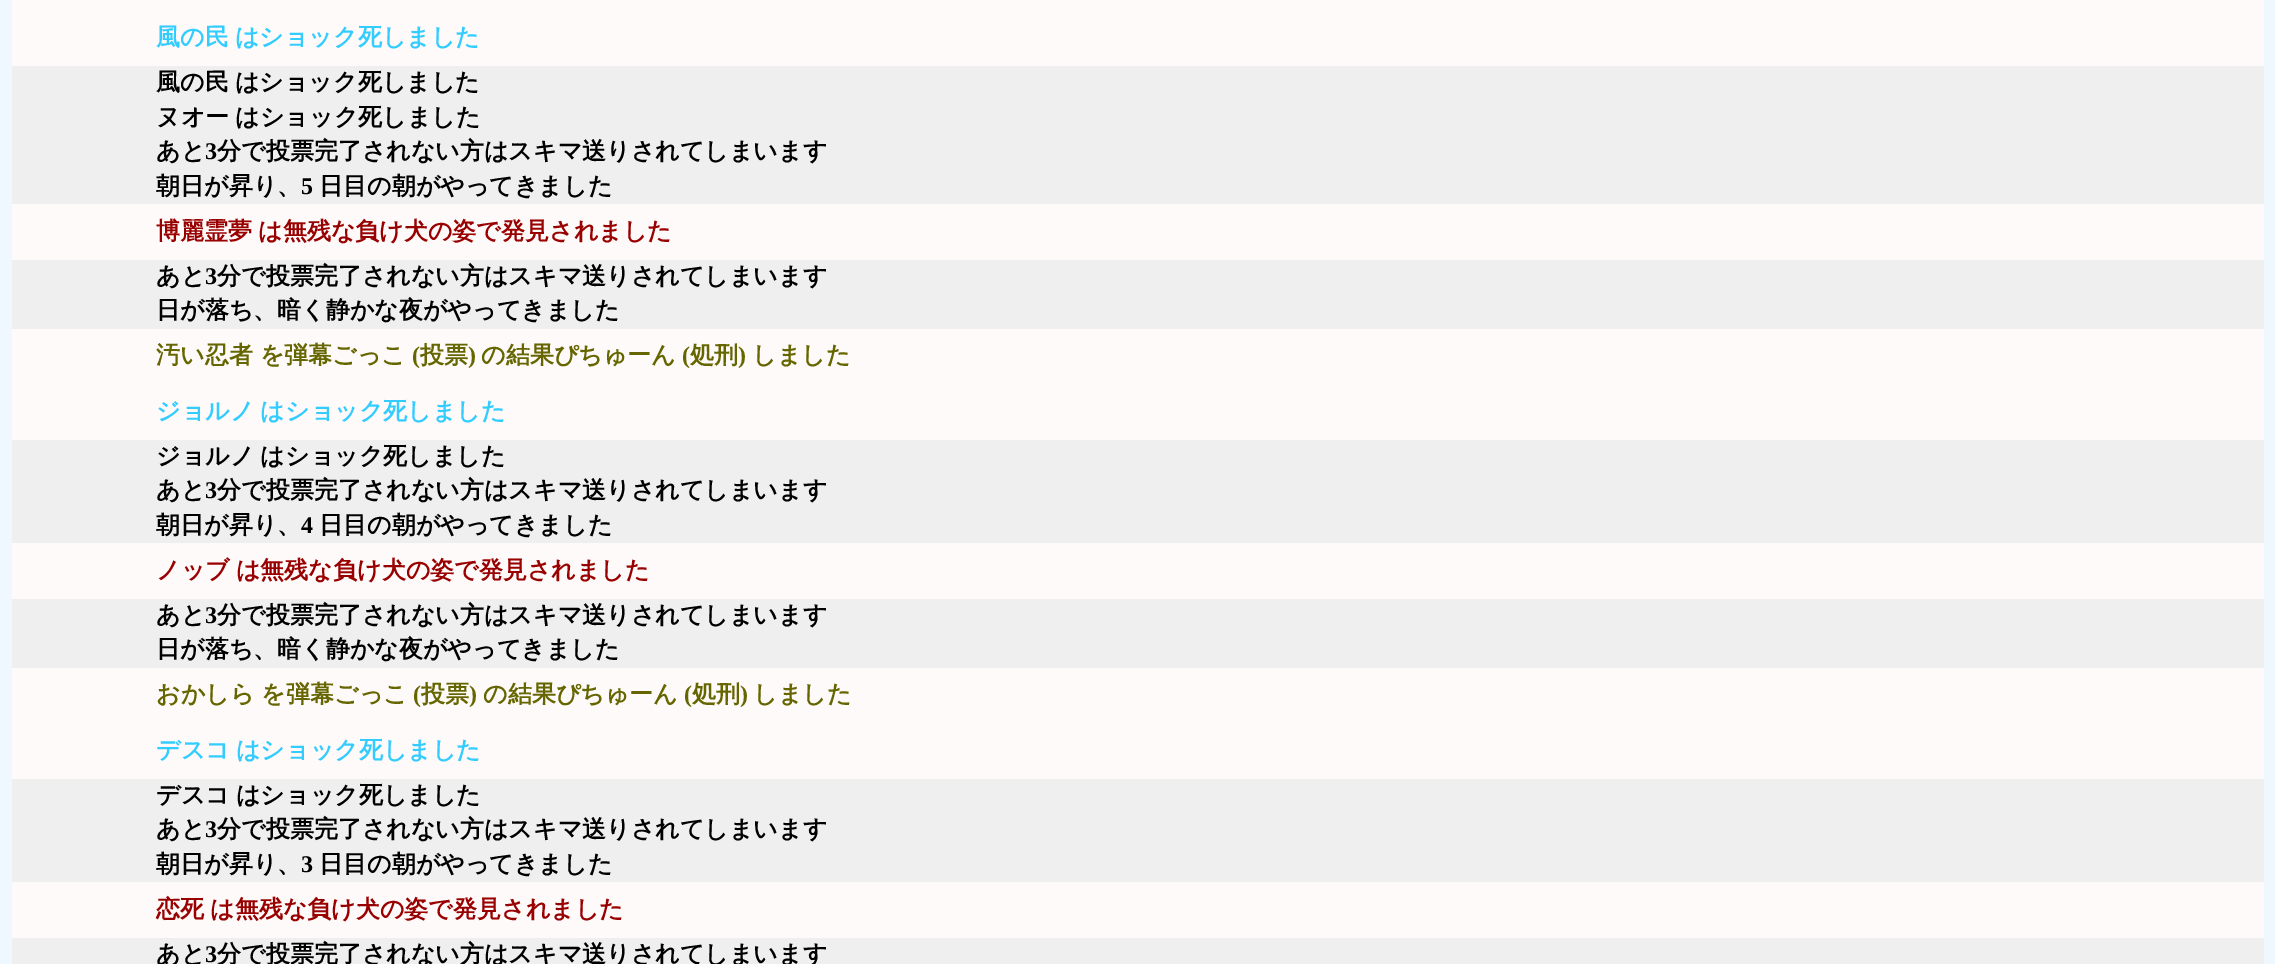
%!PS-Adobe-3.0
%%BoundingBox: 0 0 2275 964
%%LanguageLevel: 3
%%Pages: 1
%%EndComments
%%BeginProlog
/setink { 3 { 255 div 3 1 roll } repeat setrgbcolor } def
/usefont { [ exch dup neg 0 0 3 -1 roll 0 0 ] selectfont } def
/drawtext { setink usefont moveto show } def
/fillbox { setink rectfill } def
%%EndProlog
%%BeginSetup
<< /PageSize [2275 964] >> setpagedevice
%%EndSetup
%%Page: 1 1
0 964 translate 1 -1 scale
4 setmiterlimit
0 0 2275 964 240 248 255 fillbox
12 0 2252 66 255 250 250 fillbox
/WenQuanYiZenHei-Bold 24 usefont
51 204 255 setink
156 45 moveto -1 0 32 (風の民 はショック死しました) widthshow
12 66 2252 138 239 239 239 fillbox
0 0 0 setink
156 90 moveto -1 0 32 (風の民 はショック死しました) widthshow
156 125 moveto -1 0 32 (ヌオー はショック死しました) widthshow
(あと) 156 159 /WenQuanYiZenHei-Bold 24 0 0 0 drawtext
(3) 205 159 /LiberationSerif-Bold 24 0 0 0 drawtext
(分で投票完了されない方はスキマ送りされてしまいます) 217 159 /WenQuanYiZenHei-Bold 24 0 0 0 drawtext
(朝日が昇り、) 156 194 /WenQuanYiZenHei-Bold 24 0 0 0 drawtext
(5) 301 194 /LiberationSerif-Bold 24 0 0 0 drawtext
(日目の朝がやってきました) 319 194 /WenQuanYiZenHei-Bold 24 0 0 0 drawtext
12 204 2252 56 255 250 250 fillbox
153 0 0 setink
156 239 moveto -1 0 32 (博麗霊夢 は無残な負け犬の姿で発見されました) widthshow
12 260 2252 69 239 239 239 fillbox
(あと) 156 284 /WenQuanYiZenHei-Bold 24 0 0 0 drawtext
(3) 205 284 /LiberationSerif-Bold 24 0 0 0 drawtext
(分で投票完了されない方はスキマ送りされてしまいます) 217 284 /WenQuanYiZenHei-Bold 24 0 0 0 drawtext
(日が落ち、暗く静かな夜がやってきました) 156 318 /WenQuanYiZenHei-Bold 24 0 0 0 drawtext
12 329 2252 111 255 250 250 fillbox
(汚い忍者 を弾幕ごっこ) 156 363 /WenQuanYiZenHei-Bold 24 102 102 0 drawtext
(\() 412 363 /LiberationSerif-Bold 24 102 102 0 drawtext
(投票) 420 363 /WenQuanYiZenHei-Bold 24 102 102 0 drawtext
(\)) 468 363 /LiberationSerif-Bold 24 102 102 0 drawtext
(の結果ぴちゅーん) 481 363 /WenQuanYiZenHei-Bold 24 102 102 0 drawtext
(\() 682 363 /LiberationSerif-Bold 24 102 102 0 drawtext
(処刑) 690 363 /WenQuanYiZenHei-Bold 24 102 102 0 drawtext
(\)) 738 363 /LiberationSerif-Bold 24 102 102 0 drawtext
(しました) 752 363 /WenQuanYiZenHei-Bold 24 102 102 0 drawtext
51 204 255 setink
156 419 moveto -1 0 32 (ジョルノ はショック死しました) widthshow
12 440 2252 103 239 239 239 fillbox
0 0 0 setink
156 464 moveto -1 0 32 (ジョルノ はショック死しました) widthshow
(あと) 156 498 /WenQuanYiZenHei-Bold 24 0 0 0 drawtext
(3) 205 498 /LiberationSerif-Bold 24 0 0 0 drawtext
(分で投票完了されない方はスキマ送りされてしまいます) 217 498 /WenQuanYiZenHei-Bold 24 0 0 0 drawtext
(朝日が昇り、) 156 533 /WenQuanYiZenHei-Bold 24 0 0 0 drawtext
(4) 301 533 /LiberationSerif-Bold 24 0 0 0 drawtext
(日目の朝がやってきました) 319 533 /WenQuanYiZenHei-Bold 24 0 0 0 drawtext
12 543 2252 56 255 250 250 fillbox
153 0 0 setink
156 578 moveto -1 0 32 (ノッブ は無残な負け犬の姿で発見されました) widthshow
12 599 2252 69 239 239 239 fillbox
(あと) 156 623 /WenQuanYiZenHei-Bold 24 0 0 0 drawtext
(3) 205 623 /LiberationSerif-Bold 24 0 0 0 drawtext
(分で投票完了されない方はスキマ送りされてしまいます) 217 623 /WenQuanYiZenHei-Bold 24 0 0 0 drawtext
(日が落ち、暗く静かな夜がやってきました) 156 657 /WenQuanYiZenHei-Bold 24 0 0 0 drawtext
12 668 2252 111 255 250 250 fillbox
(おかしら を弾幕ごっこ) 156 702 /WenQuanYiZenHei-Bold 24 102 102 0 drawtext
(\() 413 702 /LiberationSerif-Bold 24 102 102 0 drawtext
(投票) 421 702 /WenQuanYiZenHei-Bold 24 102 102 0 drawtext
(\)) 469 702 /LiberationSerif-Bold 24 102 102 0 drawtext
(の結果ぴちゅーん) 483 702 /WenQuanYiZenHei-Bold 24 102 102 0 drawtext
(\() 684 702 /LiberationSerif-Bold 24 102 102 0 drawtext
(処刑) 692 702 /WenQuanYiZenHei-Bold 24 102 102 0 drawtext
(\)) 740 702 /LiberationSerif-Bold 24 102 102 0 drawtext
(しました) 753 702 /WenQuanYiZenHei-Bold 24 102 102 0 drawtext
51 204 255 setink
156 758 moveto -1 0 32 (デスコ はショック死しました) widthshow
12 779 2252 103 239 239 239 fillbox
0 0 0 setink
156 803 moveto -1 0 32 (デスコ はショック死しました) widthshow
(あと) 156 837 /WenQuanYiZenHei-Bold 24 0 0 0 drawtext
(3) 205 837 /LiberationSerif-Bold 24 0 0 0 drawtext
(分で投票完了されない方はスキマ送りされてしまいます) 217 837 /WenQuanYiZenHei-Bold 24 0 0 0 drawtext
(朝日が昇り、) 156 872 /WenQuanYiZenHei-Bold 24 0 0 0 drawtext
(3) 301 872 /LiberationSerif-Bold 24 0 0 0 drawtext
(日目の朝がやってきました) 319 872 /WenQuanYiZenHei-Bold 24 0 0 0 drawtext
12 882 2252 56 255 250 250 fillbox
153 0 0 setink
156 917 moveto -1 0 32 (恋死 は無残な負け犬の姿で発見されました) widthshow
12 938 2252 26 239 239 239 fillbox
(あと) 156 962 /WenQuanYiZenHei-Bold 24 0 0 0 drawtext
(3) 205 962 /LiberationSerif-Bold 24 0 0 0 drawtext
(分で投票完了されない方はスキマ送りされてしまいます) 217 962 /WenQuanYiZenHei-Bold 24 0 0 0 drawtext
showpage
%%EOF
